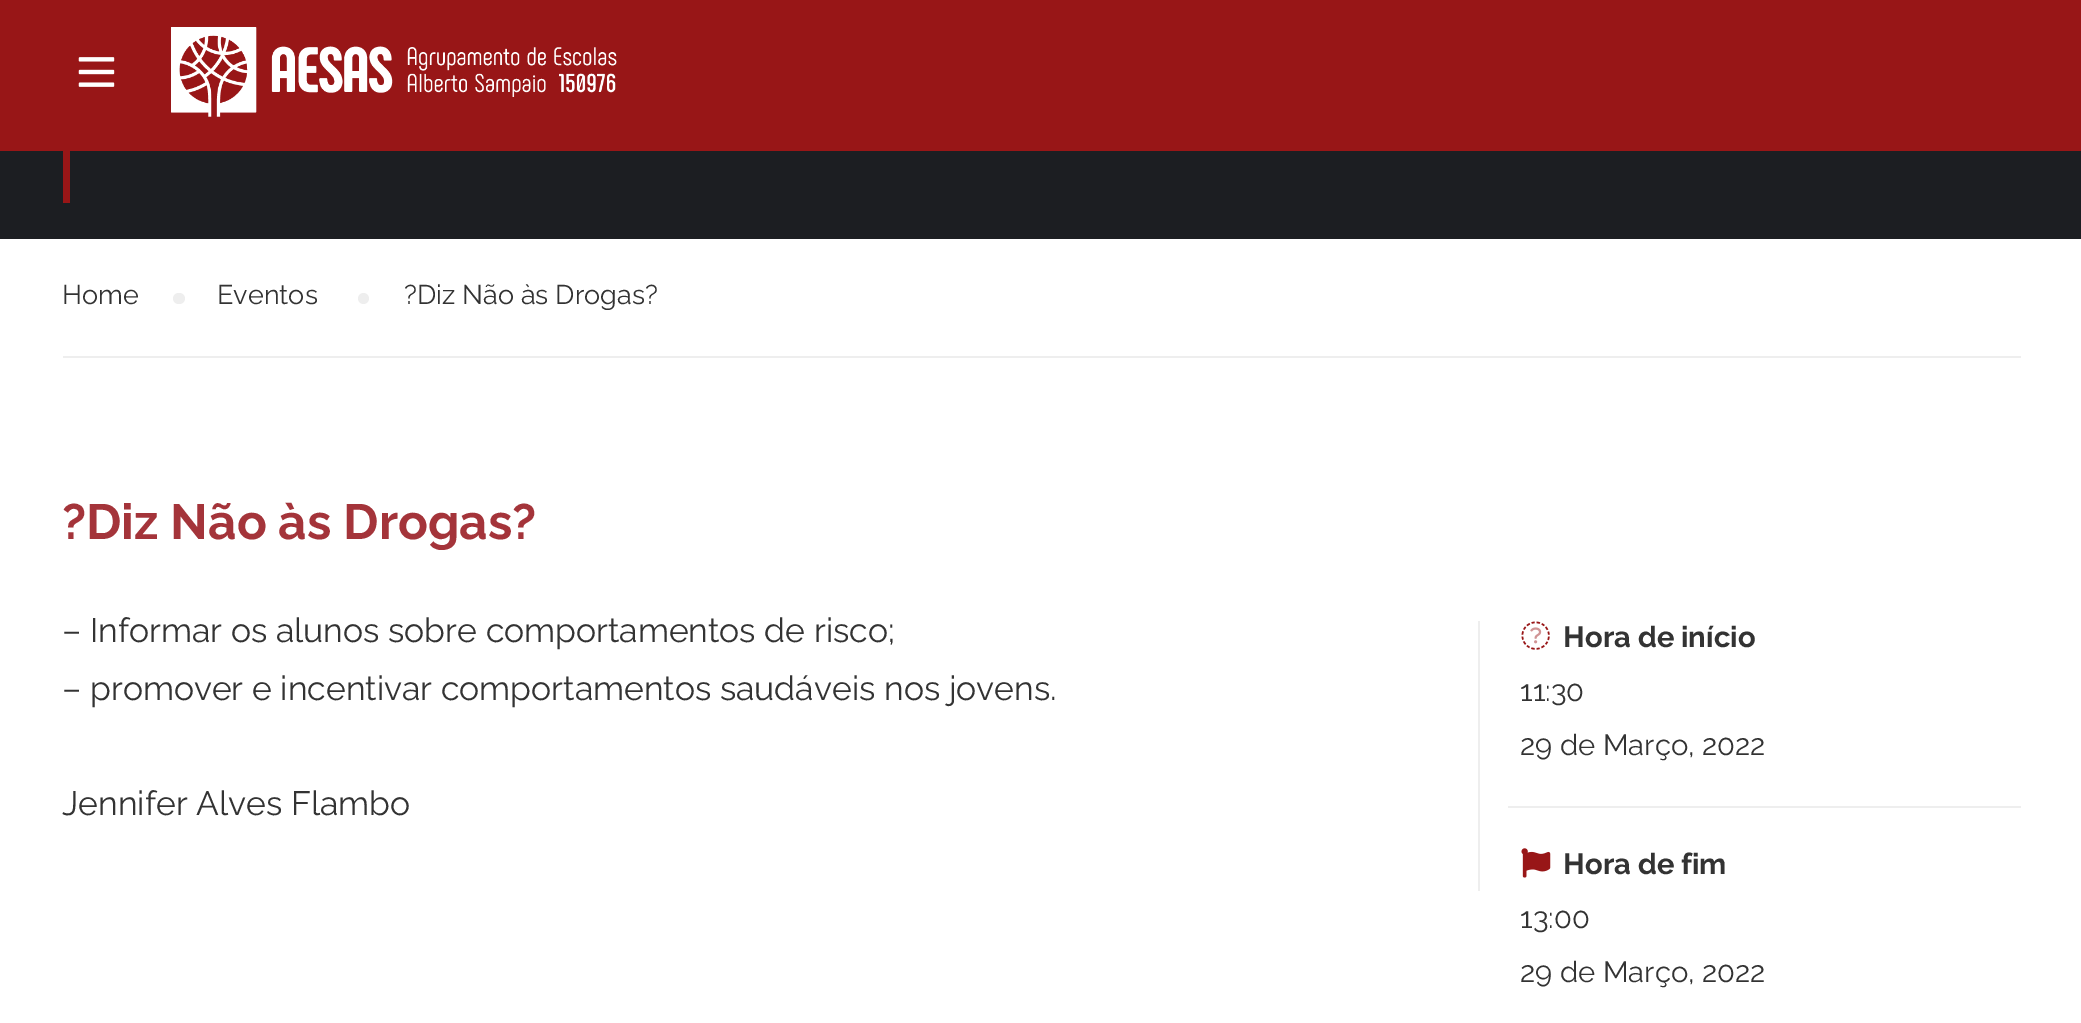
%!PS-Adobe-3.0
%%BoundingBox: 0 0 2081 1023
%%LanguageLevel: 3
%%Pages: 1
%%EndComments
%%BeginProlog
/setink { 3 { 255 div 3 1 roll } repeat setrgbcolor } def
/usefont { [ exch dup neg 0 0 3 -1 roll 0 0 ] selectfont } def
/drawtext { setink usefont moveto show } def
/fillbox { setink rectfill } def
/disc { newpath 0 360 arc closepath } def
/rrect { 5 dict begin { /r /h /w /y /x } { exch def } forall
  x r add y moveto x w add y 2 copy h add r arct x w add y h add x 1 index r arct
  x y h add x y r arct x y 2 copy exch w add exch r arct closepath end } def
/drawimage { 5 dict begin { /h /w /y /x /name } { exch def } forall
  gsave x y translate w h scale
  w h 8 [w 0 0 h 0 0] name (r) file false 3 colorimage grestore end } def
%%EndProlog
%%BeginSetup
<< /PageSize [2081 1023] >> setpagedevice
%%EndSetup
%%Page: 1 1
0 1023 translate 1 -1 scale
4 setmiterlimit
0 0 2081 1023 255 255 255 fillbox
0 0 2081 151 152 22 23 fillbox
(assets/img1.rgb) 78 57 37 30 drawimage
(assets/img2.rgb) 171 27 446 90 drawimage
0 151 2081 88 28 30 34 fillbox
63 151 7 52 152 22 23 fillbox
63 356 1958 2 238 238 238 fillbox
(Home) 62 304 /Raleway-Regular 27 51 51 51 drawtext
238 238 238 setink
173 293 12 11 5.5 rrect fill
(Eventos) 217 304 /Raleway-Regular 27 51 51 51 drawtext
238 238 238 setink
363.5 298.5 5.5 disc fill
(?Diz Não às Drogas?) 404 304 /Raleway-Regular 27 51 51 51 drawtext
(?Diz Não às Drogas?) 62 539 /Raleway-Bold 49.5 164 52 58 drawtext
(– Informar os alunos sobre comportamentos de risco;) 62 642 /Raleway-Regular 33.75 51 51 51 drawtext
(– promover e incentivar comportamentos saudáveis nos jovens.) 62 700 /Raleway-Regular 33.75 51 51 51 drawtext
(Jennifer Alves Flambo) 62 815 /Raleway-Regular 33.75 51 51 51 drawtext
1478 621 2 270 238 238 238 fillbox
1508 806 513 2 238 238 238 fillbox
(assets/img3.rgb) 1521 621 29 29 drawimage
(Hora de início) 1563 647 /Raleway-Bold 29.25 51 51 51 drawtext
(11:30) 1520 701 /Raleway-Regular 29.25 51 51 51 drawtext
(29 de Março, 2022) 1520 755 /Raleway-Regular 29.25 51 51 51 drawtext
(assets/img4.rgb) 1521 848 30 30 drawimage
(Hora de fim) 1563 874 /Raleway-Bold 29.25 51 51 51 drawtext
(13:00) 1520 928 /Raleway-Regular 29.25 51 51 51 drawtext
(29 de Março, 2022) 1520 982 /Raleway-Regular 29.25 51 51 51 drawtext
showpage
%%EOF
